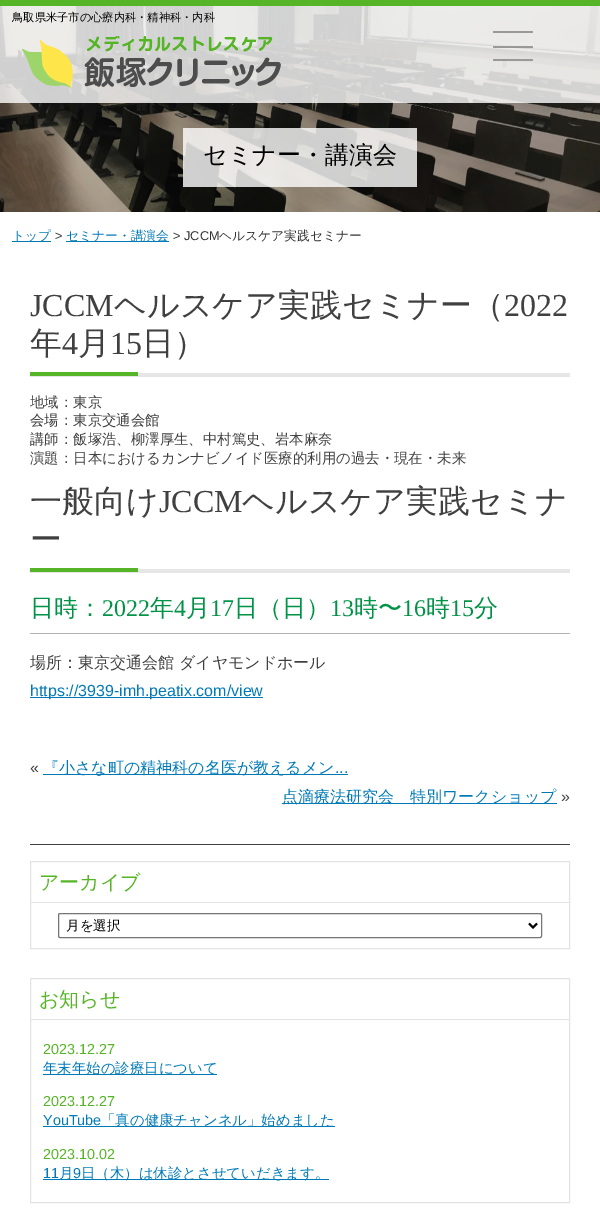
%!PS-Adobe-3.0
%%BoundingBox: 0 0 600 1218
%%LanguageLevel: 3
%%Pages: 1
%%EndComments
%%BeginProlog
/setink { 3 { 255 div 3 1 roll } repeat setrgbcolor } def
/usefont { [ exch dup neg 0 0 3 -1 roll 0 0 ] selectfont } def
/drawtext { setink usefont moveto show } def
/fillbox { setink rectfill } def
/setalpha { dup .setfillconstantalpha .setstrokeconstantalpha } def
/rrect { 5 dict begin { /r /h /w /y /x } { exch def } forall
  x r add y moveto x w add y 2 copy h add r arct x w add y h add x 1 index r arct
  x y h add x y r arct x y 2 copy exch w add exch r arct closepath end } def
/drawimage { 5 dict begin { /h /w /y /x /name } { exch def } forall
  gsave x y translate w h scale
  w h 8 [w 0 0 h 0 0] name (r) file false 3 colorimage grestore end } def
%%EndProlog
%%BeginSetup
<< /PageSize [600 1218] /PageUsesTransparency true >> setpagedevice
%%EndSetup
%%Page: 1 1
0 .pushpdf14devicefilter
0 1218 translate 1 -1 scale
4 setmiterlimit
0 0 600 1218 255 255 255 fillbox
(assets/img1.rgb) 0 6 600 206 drawimage
0 0 600 6 86 181 38 fillbox
0.8 setalpha
0 6 600 97 255 255 255 fillbox
1 setalpha
(鳥取県米子市の心療内科・精神科・内科) 12 21 /WenQuanYiZenHei-Medium 11.25 0 0 0 drawtext
(assets/img2.rgb) 22 36 259 52 drawimage
153 153 153 setink
493 31 40 2 1 rrect fill
493 46 40 2 1 rrect fill
493 59 40 2 1 rrect fill
0.8 setalpha
183 128 234 59 255 255 255 fillbox
1 setalpha
(セミナー・講演会) 203 163 /WenQuanYiZenHei-Medium 24 0 0 0 drawtext
12 241 39 1 0 122 183 fillbox
(トップ) 12 240 /WenQuanYiZenHei-Medium 12.75 0 122 183 drawtext
(>) 55 240 /LiberationSans-Regular 12.75 51 51 51 drawtext
66 241 103 1 0 122 183 fillbox
(セミナー・講演会) 66 240 /WenQuanYiZenHei-Medium 12.75 0 122 183 drawtext
(> JCCM) 173 240 /LiberationSans-Regular 12.75 51 51 51 drawtext
(ヘルスケア実践セミナー) 219 240 /WenQuanYiZenHei-Medium 12.75 51 51 51 drawtext
30 373 540 4 230 230 230 fillbox
(JCCM) 30 316 /LiberationSerif-Regular 32 64 64 64 drawtext
(ヘルスケア実践セミナー（) 114 316 /WenQuanYiZenHei-Medium 32 64 64 64 drawtext
(2022) 504 316 /LiberationSerif-Regular 32 64 64 64 drawtext
(年) 30 354 /WenQuanYiZenHei-Medium 32 64 64 64 drawtext
(4) 62 354 /LiberationSerif-Regular 32 64 64 64 drawtext
(月) 78 354 /WenQuanYiZenHei-Medium 32 64 64 64 drawtext
(15) 110 354 /LiberationSerif-Regular 32 64 64 64 drawtext
(日）) 142 354 /WenQuanYiZenHei-Medium 32 64 64 64 drawtext
30 372 108 4 86 181 38 fillbox
(地域：東京) 30 407 /WenQuanYiZenHei-Medium 14.4 64 64 64 drawtext
(会場：東京交通会館) 30 425 /WenQuanYiZenHei-Medium 14.4 64 64 64 drawtext
(講師：飯塚浩、柳澤厚生、中村篤史、岩本麻奈) 30 444 /WenQuanYiZenHei-Medium 14.4 64 64 64 drawtext
(演題：日本におけるカンナビノイド医療的利用の過去・現在・未来) 30 463 /WenQuanYiZenHei-Medium 14.4 64 64 64 drawtext
30 569 540 4 230 230 230 fillbox
(一般向け) 30 512 /WenQuanYiZenHei-Medium 32 64 64 64 drawtext
(JCCM) 159 512 /LiberationSerif-Regular 32 64 64 64 drawtext
(ヘルスケア実践セミナ) 242 512 /WenQuanYiZenHei-Medium 32 64 64 64 drawtext
(ー) 30 550 /WenQuanYiZenHei-Medium 32 64 64 64 drawtext
30 568 108 4 86 181 38 fillbox
30 633 540 1 179 179 179 fillbox
(日時：) 30 616 /WenQuanYiZenHei-Medium 24 0 146 69 drawtext
(2022) 102 616 /LiberationSerif-Regular 24 0 146 69 drawtext
(年) 150 616 /WenQuanYiZenHei-Medium 24 0 146 69 drawtext
(4) 174 616 /LiberationSerif-Regular 24 0 146 69 drawtext
(月) 186 616 /WenQuanYiZenHei-Medium 24 0 146 69 drawtext
(17) 210 616 /LiberationSerif-Regular 24 0 146 69 drawtext
(日（日）) 234 616 /WenQuanYiZenHei-Medium 24 0 146 69 drawtext
(13) 330 616 /LiberationSerif-Regular 24 0 146 69 drawtext
(時〜) 354 616 /WenQuanYiZenHei-Medium 24 0 146 69 drawtext
(16) 402 616 /LiberationSerif-Regular 24 0 146 69 drawtext
(時) 426 616 /WenQuanYiZenHei-Medium 24 0 146 69 drawtext
(15) 450 616 /LiberationSerif-Regular 24 0 146 69 drawtext
(分) 474 616 /WenQuanYiZenHei-Medium 24 0 146 69 drawtext
(場所：東京交通会館 ダイヤモンドホール) 30 668 /WenQuanYiZenHei-Medium 16 64 64 64 drawtext
30 697 233 1 0 122 183 fillbox
(https://3939-imh.peatix.com/view) 30 696 /LiberationSans-Regular 16 0 122 183 drawtext
(«) 30 773 /LiberationSans-Regular 16 64 64 64 drawtext
43 774 305 1 0 122 183 fillbox
(『小さな町の精神科の名医が教えるメン) 43 773 /WenQuanYiZenHei-Medium 16 0 122 183 drawtext
(...) 335 773 /LiberationSans-Regular 16 0 122 183 drawtext
282 803 275 1 0 122 183 fillbox
(点滴療法研究会　特別ワークショップ) 282 802 /WenQuanYiZenHei-Medium 16 0 122 183 drawtext
(») 561 802 /LiberationSans-Regular 16 64 64 64 drawtext
30 844 540 1 64 64 64 fillbox
227 227 227 setink
30.5 861.5 539 87 rectstroke
31 902 538 1 227 227 227 fillbox
(アーカイブ) 39 889 /WenQuanYiZenHei-Medium 20 86 181 38 drawtext
118 118 118 setink
58.5 913.5 483 24 1.5 rrect stroke
0 0 0 setink
2 setlinewidth
529 923.5 moveto 533 927.5 lineto 537 923.5 lineto stroke
(月を選択) 66 930 /WenQuanYiZenHei-Medium 13.5 0 0 0 drawtext
227 227 227 setink
1 setlinewidth
30.5 978.5 539 224 rectstroke
31 1019 538 1 227 227 227 fillbox
(お知らせ) 39 1006 /WenQuanYiZenHei-Medium 20 86 181 38 drawtext
(2023.12.27) 43 1054 /LiberationSans-Regular 14.4 86 181 38 drawtext
43 1074 174 1 0 122 183 fillbox
(年末年始の診療日について) 43 1073 /WenQuanYiZenHei-Medium 14.4 0 122 183 drawtext
(2023.12.27) 43 1106 /LiberationSans-Regular 14.4 86 181 38 drawtext
(YouTube) 43 1125 /LiberationSans-Regular 14.4 0 122 183 drawtext
43 1126 292 1 0 122 183 fillbox
(「真の健康チャンネル」始めました) 101 1125 /WenQuanYiZenHei-Medium 14.4 0 122 183 drawtext
(2023.10.02) 43 1159 /LiberationSans-Regular 14.4 86 181 38 drawtext
(11) 43 1178 /LiberationSans-Regular 14.4 0 122 183 drawtext
43 1179 286 1 0 122 183 fillbox
(月) 59 1178 /WenQuanYiZenHei-Medium 14.4 0 122 183 drawtext
(9) 73 1178 /LiberationSans-Regular 14.4 0 122 183 drawtext
(日（木）は休診とさせていだきます。) 81 1178 /WenQuanYiZenHei-Medium 14.4 0 122 183 drawtext
.poppdf14devicefilter showpage
%%EOF
